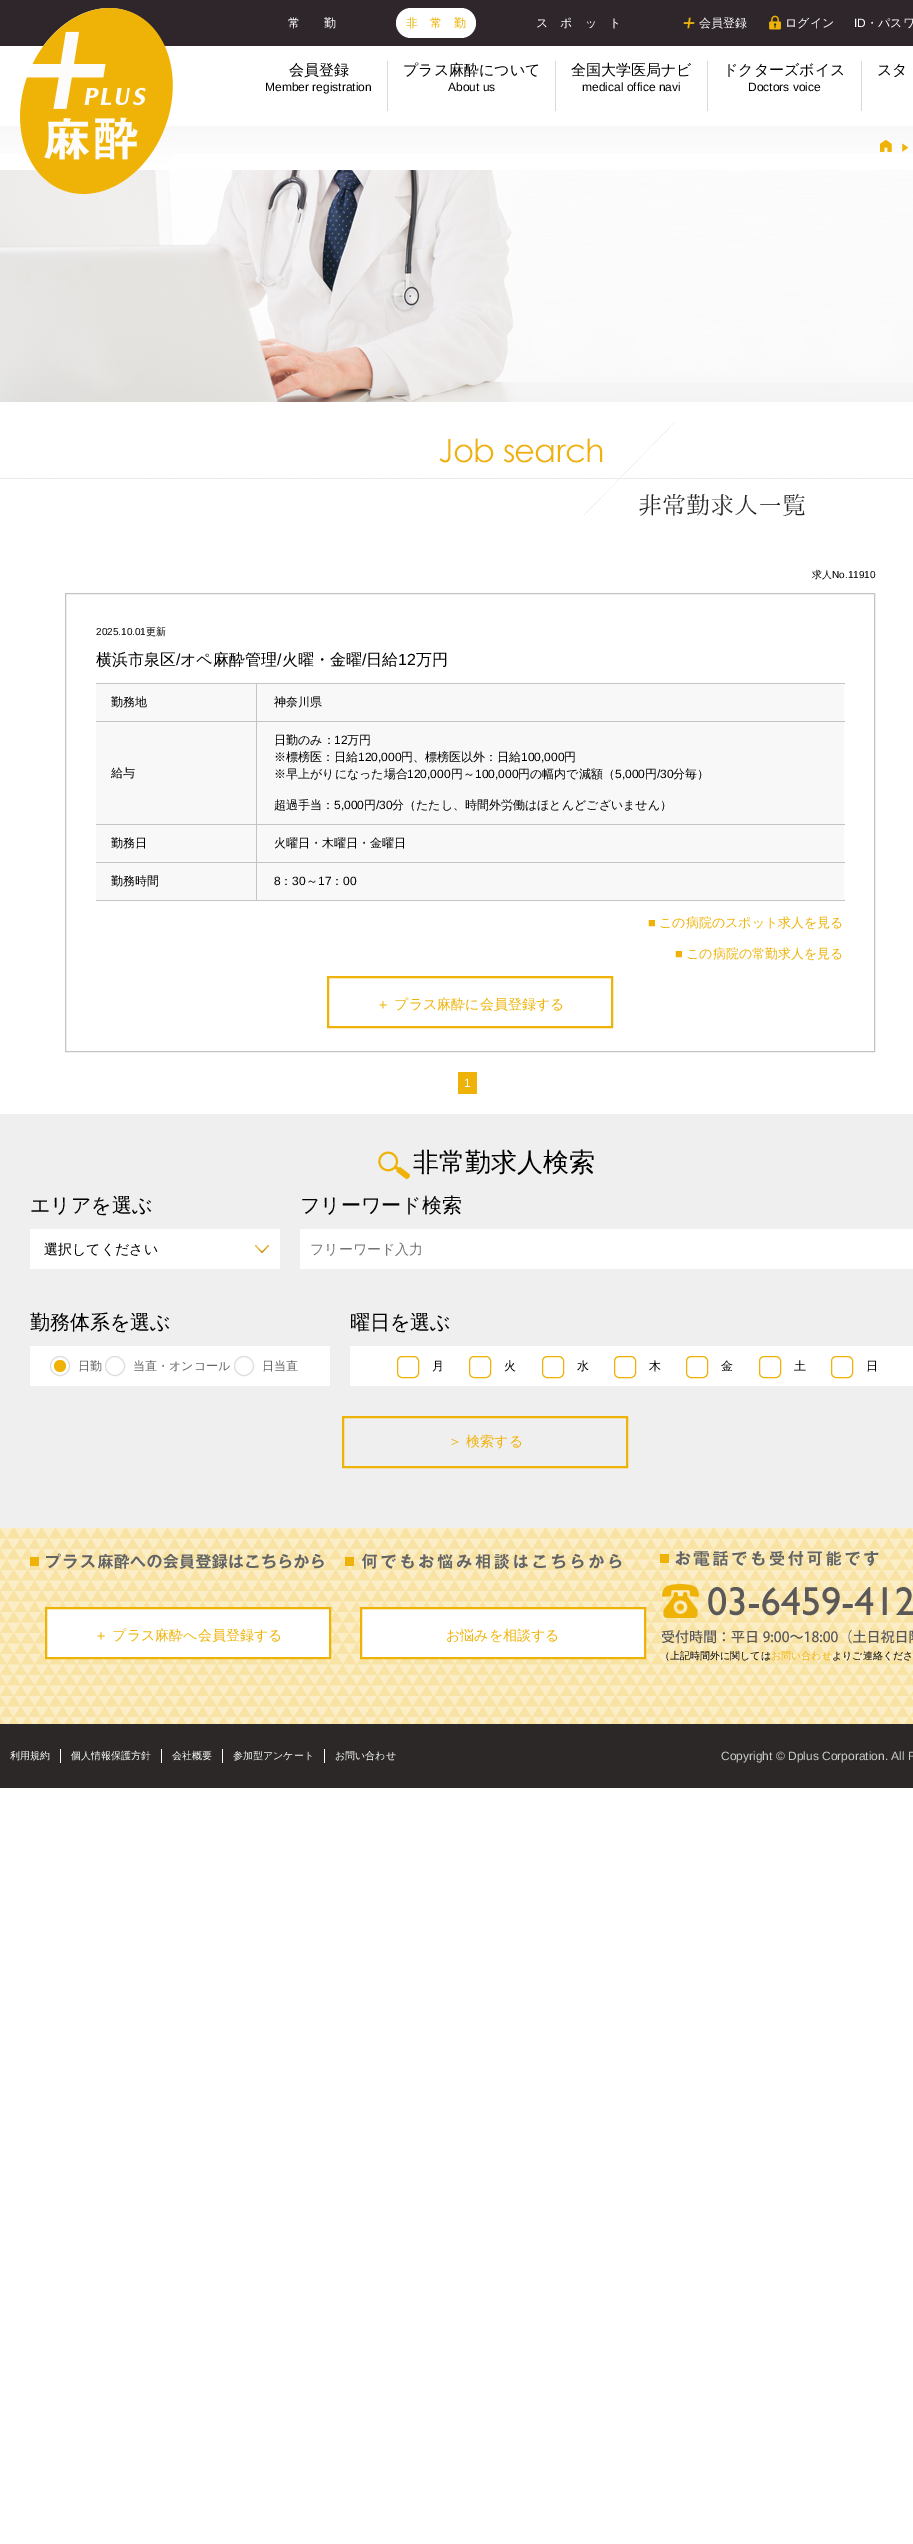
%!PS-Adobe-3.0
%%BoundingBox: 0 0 913 2544
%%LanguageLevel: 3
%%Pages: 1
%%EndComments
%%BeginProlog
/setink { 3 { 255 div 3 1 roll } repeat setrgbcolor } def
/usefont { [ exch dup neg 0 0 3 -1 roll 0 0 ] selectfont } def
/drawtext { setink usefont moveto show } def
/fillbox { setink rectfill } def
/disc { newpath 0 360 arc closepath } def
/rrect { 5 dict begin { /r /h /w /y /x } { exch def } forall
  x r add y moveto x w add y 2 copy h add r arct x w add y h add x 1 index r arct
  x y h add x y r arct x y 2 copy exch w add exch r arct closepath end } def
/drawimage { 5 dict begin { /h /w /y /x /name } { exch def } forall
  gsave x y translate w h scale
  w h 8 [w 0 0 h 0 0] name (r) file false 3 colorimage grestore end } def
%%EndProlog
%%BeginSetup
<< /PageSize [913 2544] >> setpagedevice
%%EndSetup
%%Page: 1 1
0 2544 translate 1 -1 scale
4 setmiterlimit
0 0 913 2544 255 255 255 fillbox
0 0 913 46 47 38 44 fillbox
0 126 913 2 248 248 249 fillbox
gsave 0 128 moveto 913 128 lineto 913 154 lineto 0 154 lineto closepath clip newpath
<< /ShadingType 2 /ColorSpace /DeviceRGB /Coords [0 128 0 168] /Extend [true true] /Function << /FunctionType 2 /Domain [0 1] /C0 [0.973 0.973 0.976] /C1 [1 1 1] /N 1 >> >> shfill grestore
(assets/img6.rgb) 0 170 913 232 drawimage
(assets/img1.rgb) 20 8 153 187 drawimage
(常　　勤) 288 27 /WenQuanYiZenHei-Medium 12 255 255 255 drawtext
396 8 80 30 15 rrect fill
(非　常　勤) 406 27 /WenQuanYiZenHei-Medium 12 239 179 7 drawtext
(ス　ポ　ッ　ト) 536 27 /WenQuanYiZenHei-Medium 12 255 255 255 drawtext
(assets/img2.rgb) 683 17 12 12 drawimage
(会員登録) 699 27 /WenQuanYiZenHei-Medium 12 255 255 255 drawtext
(assets/img3.rgb) 769 15 12 15 drawimage
(ログイン) 785 27 /WenQuanYiZenHei-Medium 12 255 255 255 drawtext
(ID) 854 27 /LiberationSans-Regular 12 255 255 255 drawtext
(・パスワ) 866 27 /WenQuanYiZenHei-Medium 12 255 255 255 drawtext
387 61 1 50 217 217 217 fillbox
(会員登録) 289 75 /WenQuanYiZenHei-Medium 15 0 0 0 drawtext
(Member registration) 265 91 /LiberationSans-Regular 12 0 0 0 drawtext
555 61 1 50 217 217 217 fillbox
(プラス麻酔について) 403 75 /WenQuanYiZenHei-Medium 15 0 0 0 drawtext
(About us) 448 91 /LiberationSans-Regular 12 0 0 0 drawtext
707 61 1 50 217 217 217 fillbox
(全国大学医局ナビ) 571 75 /WenQuanYiZenHei-Medium 15 0 0 0 drawtext
(medical office navi) 582 91 /LiberationSans-Regular 12 0 0 0 drawtext
861 61 1 50 217 217 217 fillbox
(ドクターズボイス) 723 75 /WenQuanYiZenHei-Medium 15 0 0 0 drawtext
(Doctors voice) 748 91 /LiberationSans-Regular 12 0 0 0 drawtext
(スタ) 877 75 /WenQuanYiZenHei-Medium 15 0 0 0 drawtext
(assets/img4.rgb) 880 140 12 12 drawimage
(assets/img5.rgb) 902 143 7 9 drawimage
(assets/img7.rgb) 0 422 913 94 drawimage
(求人) 812 578 /WenQuanYiZenHei-Medium 10 0 0 0 drawtext
(No.11910) 832 578 /LiberationSans-Regular 10 0 0 0 drawtext
196 196 196 setink
65.5 593.5 809 458 rectstroke
(2025.10.01) 96 635 /LiberationSans-Regular 10 0 0 0 drawtext
(更新) 146 635 /WenQuanYiZenHei-Medium 10 0 0 0 drawtext
(横浜市泉区) 96 665 /WenQuanYiZenHei-Medium 16 0 0 0 drawtext
(/) 176 665 /LiberationSans-Regular 16 0 0 0 drawtext
(オペ麻酔管理) 180 665 /WenQuanYiZenHei-Medium 16 0 0 0 drawtext
(/) 277 665 /LiberationSans-Regular 16 0 0 0 drawtext
(火曜・金曜) 282 665 /WenQuanYiZenHei-Medium 16 0 0 0 drawtext
(/) 362 665 /LiberationSans-Regular 16 0 0 0 drawtext
(日給) 366 665 /WenQuanYiZenHei-Medium 16 0 0 0 drawtext
(12) 398 665 /LiberationSans-Regular 16 0 0 0 drawtext
(万円) 416 665 /WenQuanYiZenHei-Medium 16 0 0 0 drawtext
96 684 748 216 248 248 248 fillbox
96 683 749 1 196 196 196 fillbox
(勤務地) 111 706 /WenQuanYiZenHei-Medium 12 0 0 0 drawtext
(神奈川県) 274 706 /WenQuanYiZenHei-Medium 12 0 0 0 drawtext
96 721 749 1 196 196 196 fillbox
(給与) 111 777 /WenQuanYiZenHei-Medium 12 0 0 0 drawtext
(日勤のみ：) 274 744 /WenQuanYiZenHei-Medium 12 0 0 0 drawtext
(12) 334 744 /LiberationSans-Regular 12 0 0 0 drawtext
(万円) 347 744 /WenQuanYiZenHei-Medium 12 0 0 0 drawtext
(※標榜医：日給) 274 761 /WenQuanYiZenHei-Medium 12 0 0 0 drawtext
(120,000) 358 761 /LiberationSans-Regular 12 0 0 0 drawtext
(円、標榜医以外：日給) 401 761 /WenQuanYiZenHei-Medium 12 0 0 0 drawtext
(100,000) 521 761 /LiberationSans-Regular 12 0 0 0 drawtext
(円) 564 761 /WenQuanYiZenHei-Medium 12 0 0 0 drawtext
(※早上がりになった場合) 274 778 /WenQuanYiZenHei-Medium 12 0 0 0 drawtext
(120,000) 407 778 /LiberationSans-Regular 12 0 0 0 drawtext
(円～) 451 778 /WenQuanYiZenHei-Medium 12 0 0 0 drawtext
(100,000) 475 778 /LiberationSans-Regular 12 0 0 0 drawtext
(円の幅内で減額（) 518 778 /WenQuanYiZenHei-Medium 12 0 0 0 drawtext
(5,000) 615 778 /LiberationSans-Regular 12 0 0 0 drawtext
(円) 645 778 /WenQuanYiZenHei-Medium 12 0 0 0 drawtext
(/30) 657 778 /LiberationSans-Regular 12 0 0 0 drawtext
(分毎）) 673 778 /WenQuanYiZenHei-Medium 12 0 0 0 drawtext
(超過手当：) 274 809 /WenQuanYiZenHei-Medium 12 0 0 0 drawtext
(5,000) 334 809 /LiberationSans-Regular 12 0 0 0 drawtext
(円) 364 809 /WenQuanYiZenHei-Medium 12 0 0 0 drawtext
(/30) 376 809 /LiberationSans-Regular 12 0 0 0 drawtext
(分（たたし、時間外労働はほとんどございません）) 392 809 /WenQuanYiZenHei-Medium 12 0 0 0 drawtext
96 824 749 1 196 196 196 fillbox
(勤務日) 111 847 /WenQuanYiZenHei-Medium 12 0 0 0 drawtext
(火曜日・木曜日・金曜日) 274 847 /WenQuanYiZenHei-Medium 12 0 0 0 drawtext
96 862 749 1 196 196 196 fillbox
96 900 749 1 196 196 196 fillbox
256 683 1 218 196 196 196 fillbox
(勤務時間) 111 885 /WenQuanYiZenHei-Medium 12 0 0 0 drawtext
(8) 274 885 /LiberationSans-Regular 12 0 0 0 drawtext
(：) 280 885 /WenQuanYiZenHei-Medium 12 0 0 0 drawtext
(30) 292 885 /LiberationSans-Regular 12 0 0 0 drawtext
(～) 306 885 /WenQuanYiZenHei-Medium 12 0 0 0 drawtext
(17) 318 885 /LiberationSans-Regular 12 0 0 0 drawtext
(：) 331 885 /WenQuanYiZenHei-Medium 12 0 0 0 drawtext
(00) 343 885 /LiberationSans-Regular 12 0 0 0 drawtext
(■) 648 927 /LiberationSans-Regular 13 239 179 7 drawtext
(この病院のスポット求人を見る) 659 927 /WenQuanYiZenHei-Medium 13 239 179 7 drawtext
(■) 675 958 /LiberationSans-Regular 13 239 179 7 drawtext
(この病院の常勤求人を見る) 686 958 /WenQuanYiZenHei-Medium 13 239 179 7 drawtext
2 setlinewidth
328 977 284 50 rectstroke
(＋ プラス麻酔に会員登録する) 376 1009 /WenQuanYiZenHei-Medium 14 239 179 7 drawtext
458 1072 19 22 239 179 7 fillbox
(1) 464 1087 /LiberationSans-Regular 12 255 255 255 drawtext
0 1114 913 414 239 239 239 fillbox
(assets/img8.rgb) 378 1151 32 29 drawimage
(非常勤求人検索) 413 1171 /WenQuanYiZenHei-Medium 26 0 0 0 drawtext
(エリアを選ぶ) 30 1212 /WenQuanYiZenHei-Medium 20 0 0 0 drawtext
30 1229 250 40 255 255 255 fillbox
(assets/img9.rgb) 255 1245 14 8 drawimage
(選択してください) 44 1254 /WenQuanYiZenHei-Medium 14 0 0 0 drawtext
(フリーワード検索) 300 1212 /WenQuanYiZenHei-Medium 20 0 0 0 drawtext
300 1229 613 40 255 255 255 fillbox
(フリーワード入力) 310 1254 /WenQuanYiZenHei-Medium 14 117 117 117 drawtext
(勤務体系を選ぶ) 30 1329 /WenQuanYiZenHei-Medium 20 0 0 0 drawtext
30 1346 300 40 255 255 255 fillbox
221 221 221 setink
1 setlinewidth
60 1366 9.5 disc stroke
239 179 7 setink
60 1366 6 disc fill
(日勤) 78 1370 /WenQuanYiZenHei-Medium 12 102 102 102 drawtext
221 221 221 setink
115 1366 9.5 disc stroke
(当直・オンコール) 133 1370 /WenQuanYiZenHei-Medium 12 102 102 102 drawtext
221 221 221 setink
244 1366 9.5 disc stroke
(日当直) 262 1370 /WenQuanYiZenHei-Medium 12 102 102 102 drawtext
(曜日を選ぶ) 350 1329 /WenQuanYiZenHei-Medium 20 0 0 0 drawtext
350 1346 563 40 255 255 255 fillbox
239 179 7 setink
397.5 1356.5 21 21 4.5 rrect stroke
(月) 432 1370 /WenQuanYiZenHei-Medium 12 0 0 0 drawtext
239 179 7 setink
469.5 1356.5 21 21 4.5 rrect stroke
(火) 504 1370 /WenQuanYiZenHei-Medium 12 0 0 0 drawtext
239 179 7 setink
542.5 1356.5 21 21 4.5 rrect stroke
(水) 577 1370 /WenQuanYiZenHei-Medium 12 0 0 0 drawtext
239 179 7 setink
614.5 1356.5 21 21 4.5 rrect stroke
(木) 649 1370 /WenQuanYiZenHei-Medium 12 0 0 0 drawtext
239 179 7 setink
686.5 1356.5 21 21 4.5 rrect stroke
(金) 721 1370 /WenQuanYiZenHei-Medium 12 0 0 0 drawtext
239 179 7 setink
759.5 1356.5 21 21 4.5 rrect stroke
(土) 794 1370 /WenQuanYiZenHei-Medium 12 0 0 0 drawtext
239 179 7 setink
831.5 1356.5 21 21 4.5 rrect stroke
(日) 866 1370 /WenQuanYiZenHei-Medium 12 0 0 0 drawtext
239 179 7 setink
2 setlinewidth
343 1417 284 50 rectstroke
(＞ 検索する) 448 1446 /WenQuanYiZenHei-Medium 14 239 179 7 drawtext
(assets/img10.rgb) 0 1528 913 196 drawimage
(assets/img11.rgb) 30 1553 294 16 drawimage
255 255 255 setink
46 1608 moveto 330 1608 lineto 330 1658 lineto 46 1658 lineto closepath gsave fill grestore
239 179 7 setink
stroke
(＋ プラス麻酔へ会員登録する) 94 1640 /WenQuanYiZenHei-Medium 14 239 179 7 drawtext
(assets/img12.rgb) 345 1553 277 16 drawimage
255 255 255 setink
361 1608 moveto 645 1608 lineto 645 1658 lineto 361 1658 lineto closepath gsave fill grestore
239 179 7 setink
stroke
(お悩みを相談する) 446 1640 /WenQuanYiZenHei-Medium 14 239 179 7 drawtext
(assets/img13.rgb) 660 1550 253 94 drawimage
(（上記時間外に関しては) 660 1659 /WenQuanYiZenHei-Medium 10 0 0 0 drawtext
(お問い合わせ) 771 1659 /WenQuanYiZenHei-Medium 10 239 179 7 drawtext
(よりご連絡くださ) 832 1659 /WenQuanYiZenHei-Medium 10 0 0 0 drawtext
0 1724 913 64 44 40 40 fillbox
60 1749 1 14 255 255 255 fillbox
(利用規約) 10 1759 /WenQuanYiZenHei-Medium 10 255 255 255 drawtext
161 1749 1 14 255 255 255 fillbox
(個人情報保護方針) 71 1759 /WenQuanYiZenHei-Medium 10 255 255 255 drawtext
222 1749 1 14 255 255 255 fillbox
(会社概要) 172 1759 /WenQuanYiZenHei-Medium 10 255 255 255 drawtext
324 1749 1 14 255 255 255 fillbox
(参加型アンケート) 233 1759 /WenQuanYiZenHei-Medium 10 255 255 255 drawtext
(お問い合わせ) 335 1759 /WenQuanYiZenHei-Medium 10 255 255 255 drawtext
(Copyright © Dplus Corporation. All R) 721 1760 /LiberationSans-Regular 12 204 204 204 drawtext
showpage
%%EOF
